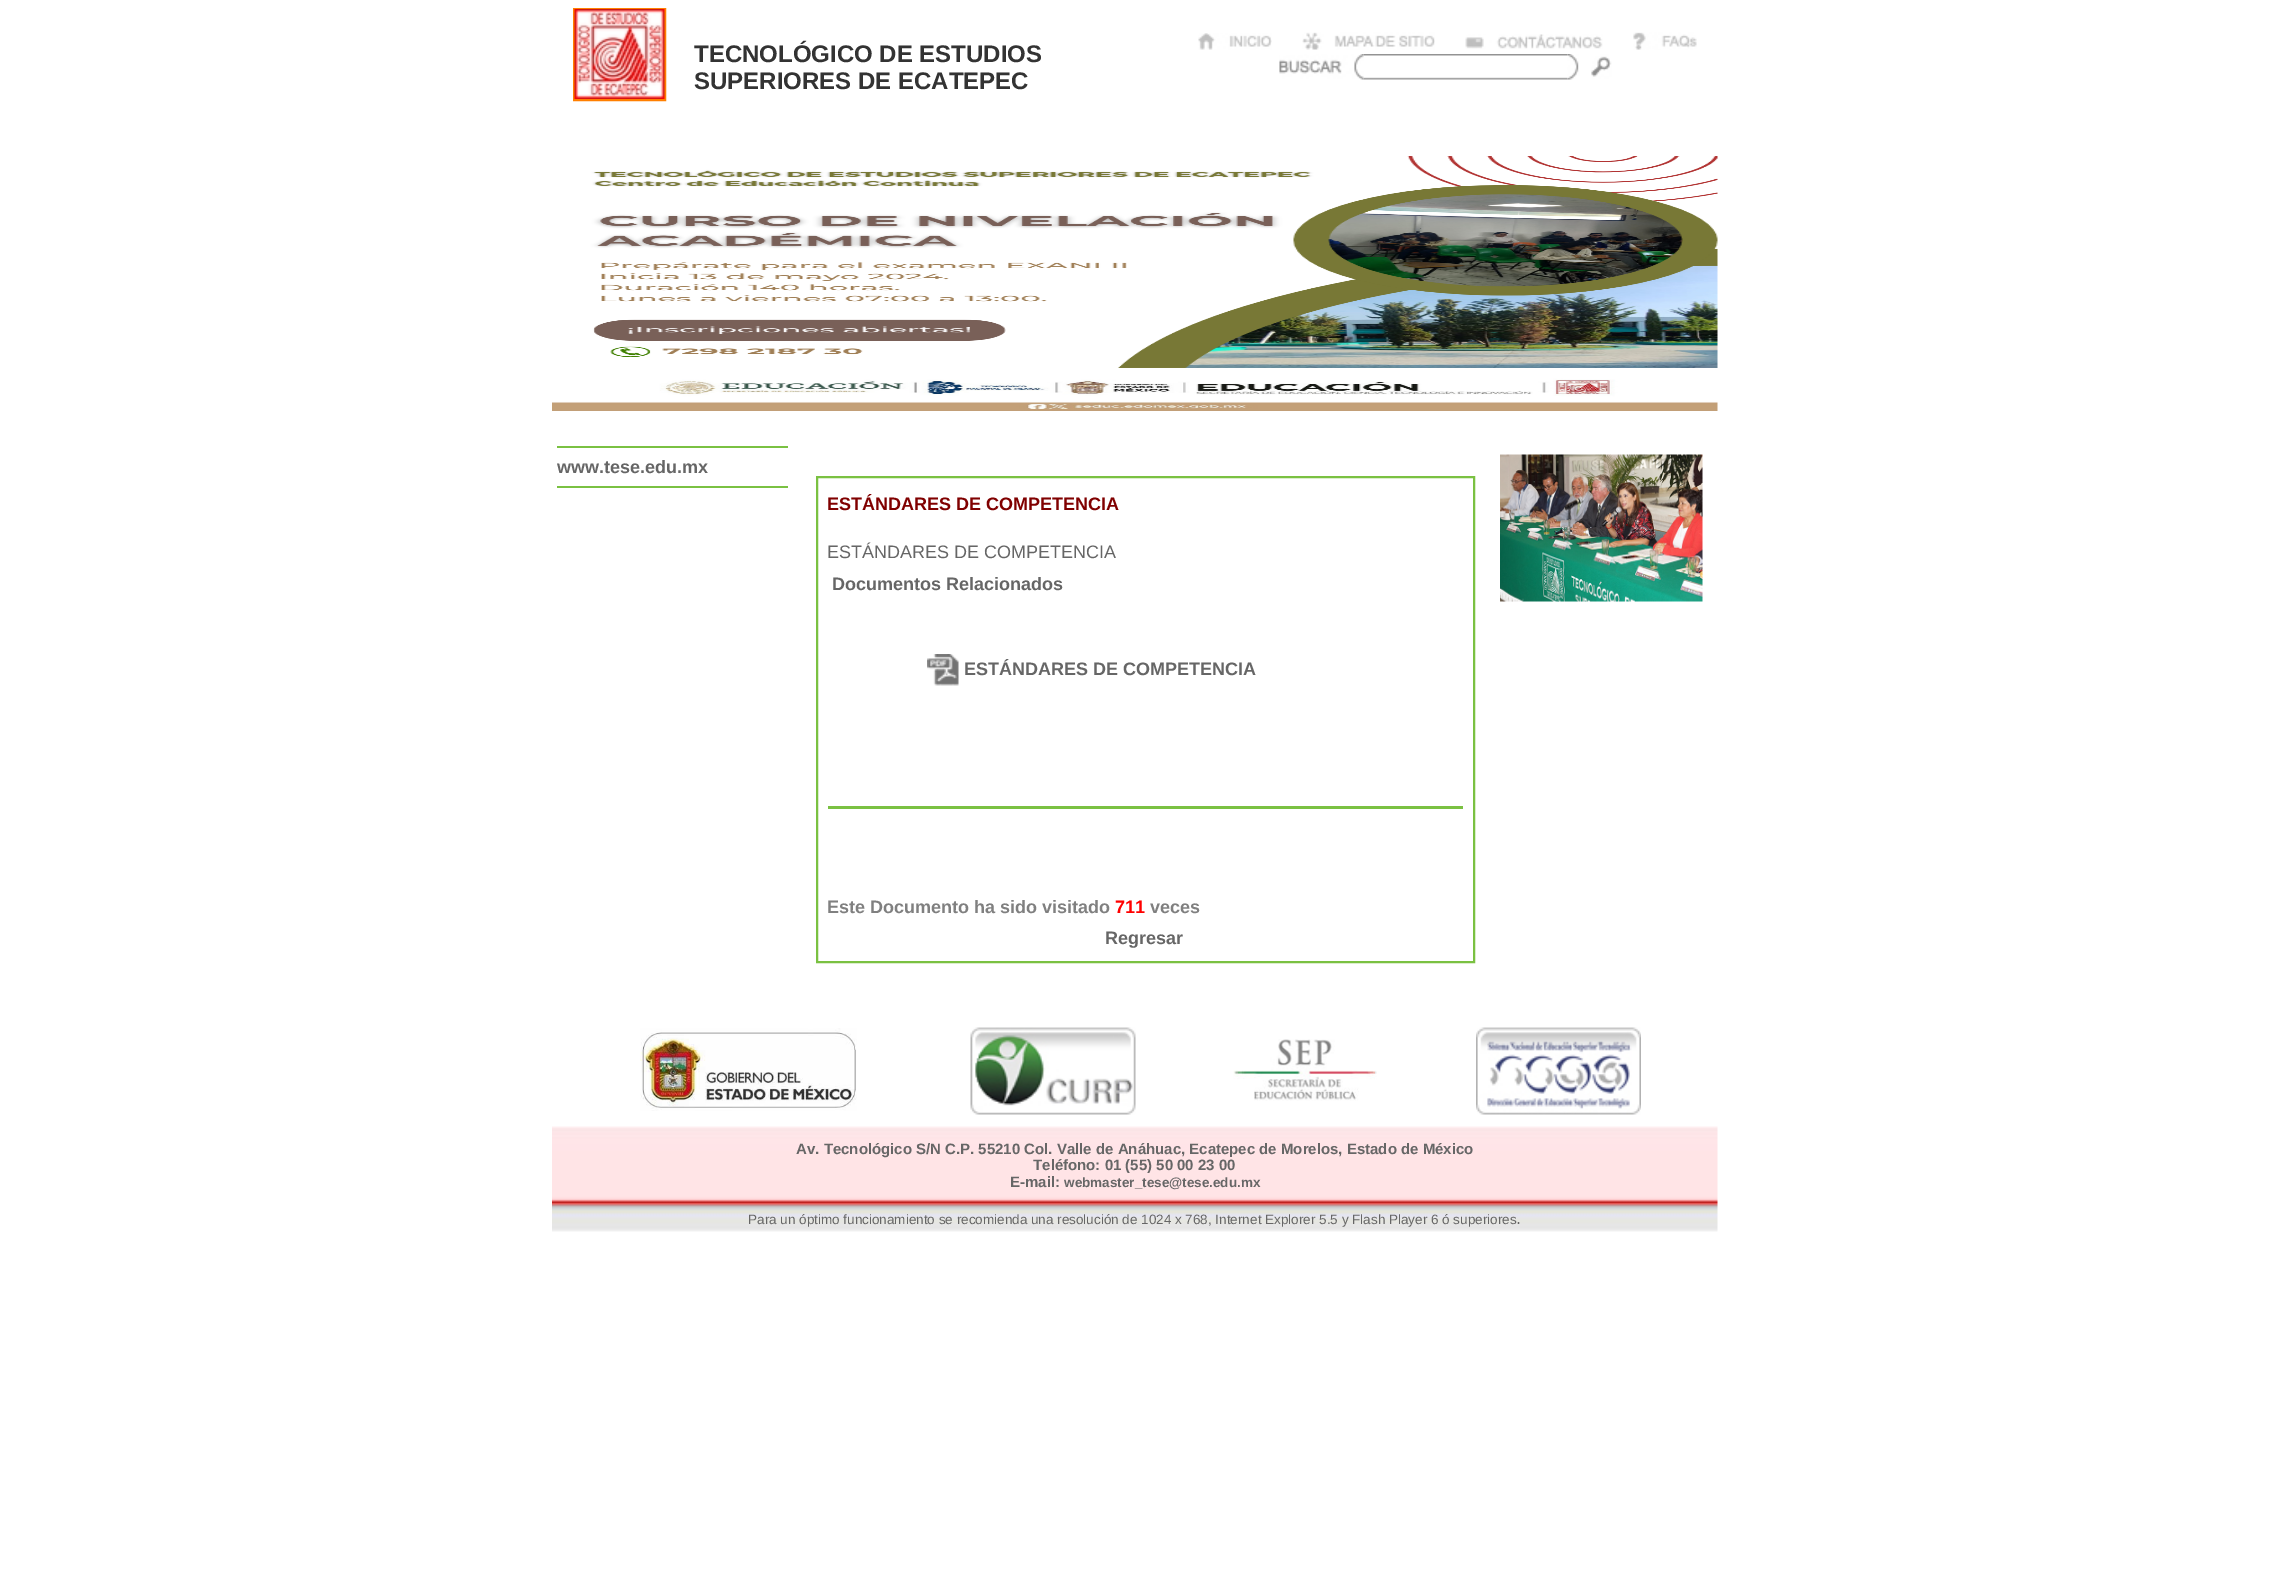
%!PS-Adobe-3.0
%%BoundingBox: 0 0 2269 1572
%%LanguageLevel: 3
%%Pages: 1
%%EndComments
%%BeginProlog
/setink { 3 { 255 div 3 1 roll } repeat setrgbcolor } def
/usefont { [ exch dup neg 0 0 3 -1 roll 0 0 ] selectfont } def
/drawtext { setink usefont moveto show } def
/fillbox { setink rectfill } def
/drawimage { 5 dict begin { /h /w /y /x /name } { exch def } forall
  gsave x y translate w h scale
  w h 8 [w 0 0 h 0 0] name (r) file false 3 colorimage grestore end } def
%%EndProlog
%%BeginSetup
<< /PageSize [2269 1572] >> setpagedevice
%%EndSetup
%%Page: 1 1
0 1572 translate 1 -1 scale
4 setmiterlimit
0 0 2269 1572 255 255 255 fillbox
255 127 0 setink
2 setlinewidth
574 9 91 91 rectstroke
(assets/img1.rgb) 574 9 91 90 drawimage
(TECNOLÓGICO DE ESTUDIOS) 694 62 /LiberationSans-Bold 24 51 51 51 drawtext
(SUPERIORES DE ECATEPEC) 694 89 /LiberationSans-Bold 24 51 51 51 drawtext
(assets/img2.rgb) 1198 33 74 17 drawimage
(assets/img3.rgb) 1302 32 133 18 drawimage
(assets/img4.rgb) 1465 34 138 15 drawimage
(assets/img5.rgb) 1633 32 64 18 drawimage
(assets/img7.rgb) 1363 54 205 26 drawimage
(assets/img6.rgb) 1279 54 85 26 drawimage
(assets/img8.rgb) 1567 54 45 26 drawimage
(assets/img9.rgb) 552 156 1166 255 drawimage
557 446 231 2 122 193 66 fillbox
(www.tese.edu.mx) 557 473 /LiberationSans-Bold 18 102 102 102 drawtext
557 486 231 2 122 193 66 fillbox
817 477 657 485 rectstroke
(ESTÁNDARES DE COMPETENCIA) 827 510 /LiberationSans-Bold 18 128 0 0 drawtext
(ESTÁNDARES DE COMPETENCIA) 827 558 /LiberationSans-Regular 18 102 102 102 drawtext
(Documentos Relacionados) 832 590 /LiberationSans-Bold 18 102 102 102 drawtext
(assets/img10.rgb) 927 654 32 32 drawimage
(ESTÁNDARES DE COMPETENCIA) 964 675 /LiberationSans-Bold 18 102 102 102 drawtext
828 806 635 3 122 193 66 fillbox
(Este Documento ha sido visitado) 827 913 /LiberationSans-Bold 18 128 128 128 drawtext
(711) 1115 913 /LiberationSans-Bold 18 255 0 0 drawtext
(veces) 1150 913 /LiberationSans-Bold 18 128 128 128 drawtext
(Regresar) 1105 944 /LiberationSans-Bold 18 102 102 102 drawtext
(assets/img11.rgb) 1500 454 203 148 drawimage
(assets/img12.rgb) 640 1028 217 83 drawimage
(assets/img13.rgb) 970 1027 166 88 drawimage
(assets/img14.rgb) 1233 1039 144 62 drawimage
(assets/img15.rgb) 1476 1027 165 88 drawimage
(assets/img16.rgb) 552 1126 1166 106 drawimage
(Av. Tecnológico S/N C.P. 55210 Col. Valle de Anáhuac, Ecatepec de Morelos, Estado de México) 796 1154 /LiberationSans-Bold 15 102 102 102 drawtext
(Teléfono: 01 \(55\) 50 00 23 00) 1033 1170 /LiberationSans-Bold 15 102 102 102 drawtext
(E-mail:) 1010 1187 /LiberationSans-Bold 15 102 102 102 drawtext
(webmaster_tese@tese.edu.mx) 1064 1187 /LiberationSans-Bold 13.5 102 102 102 drawtext
(Para un óptimo funcionamiento se recomienda una resolución de 1024 x 768, Internet Explorer 5.5 y Flash Player 6 ó superiores) 748 1224 /LiberationSans-Regular 13.5 102 102 102 drawtext
(.) 1516 1224 /LiberationSans-Regular 18 102 102 102 drawtext
showpage
%%EOF
